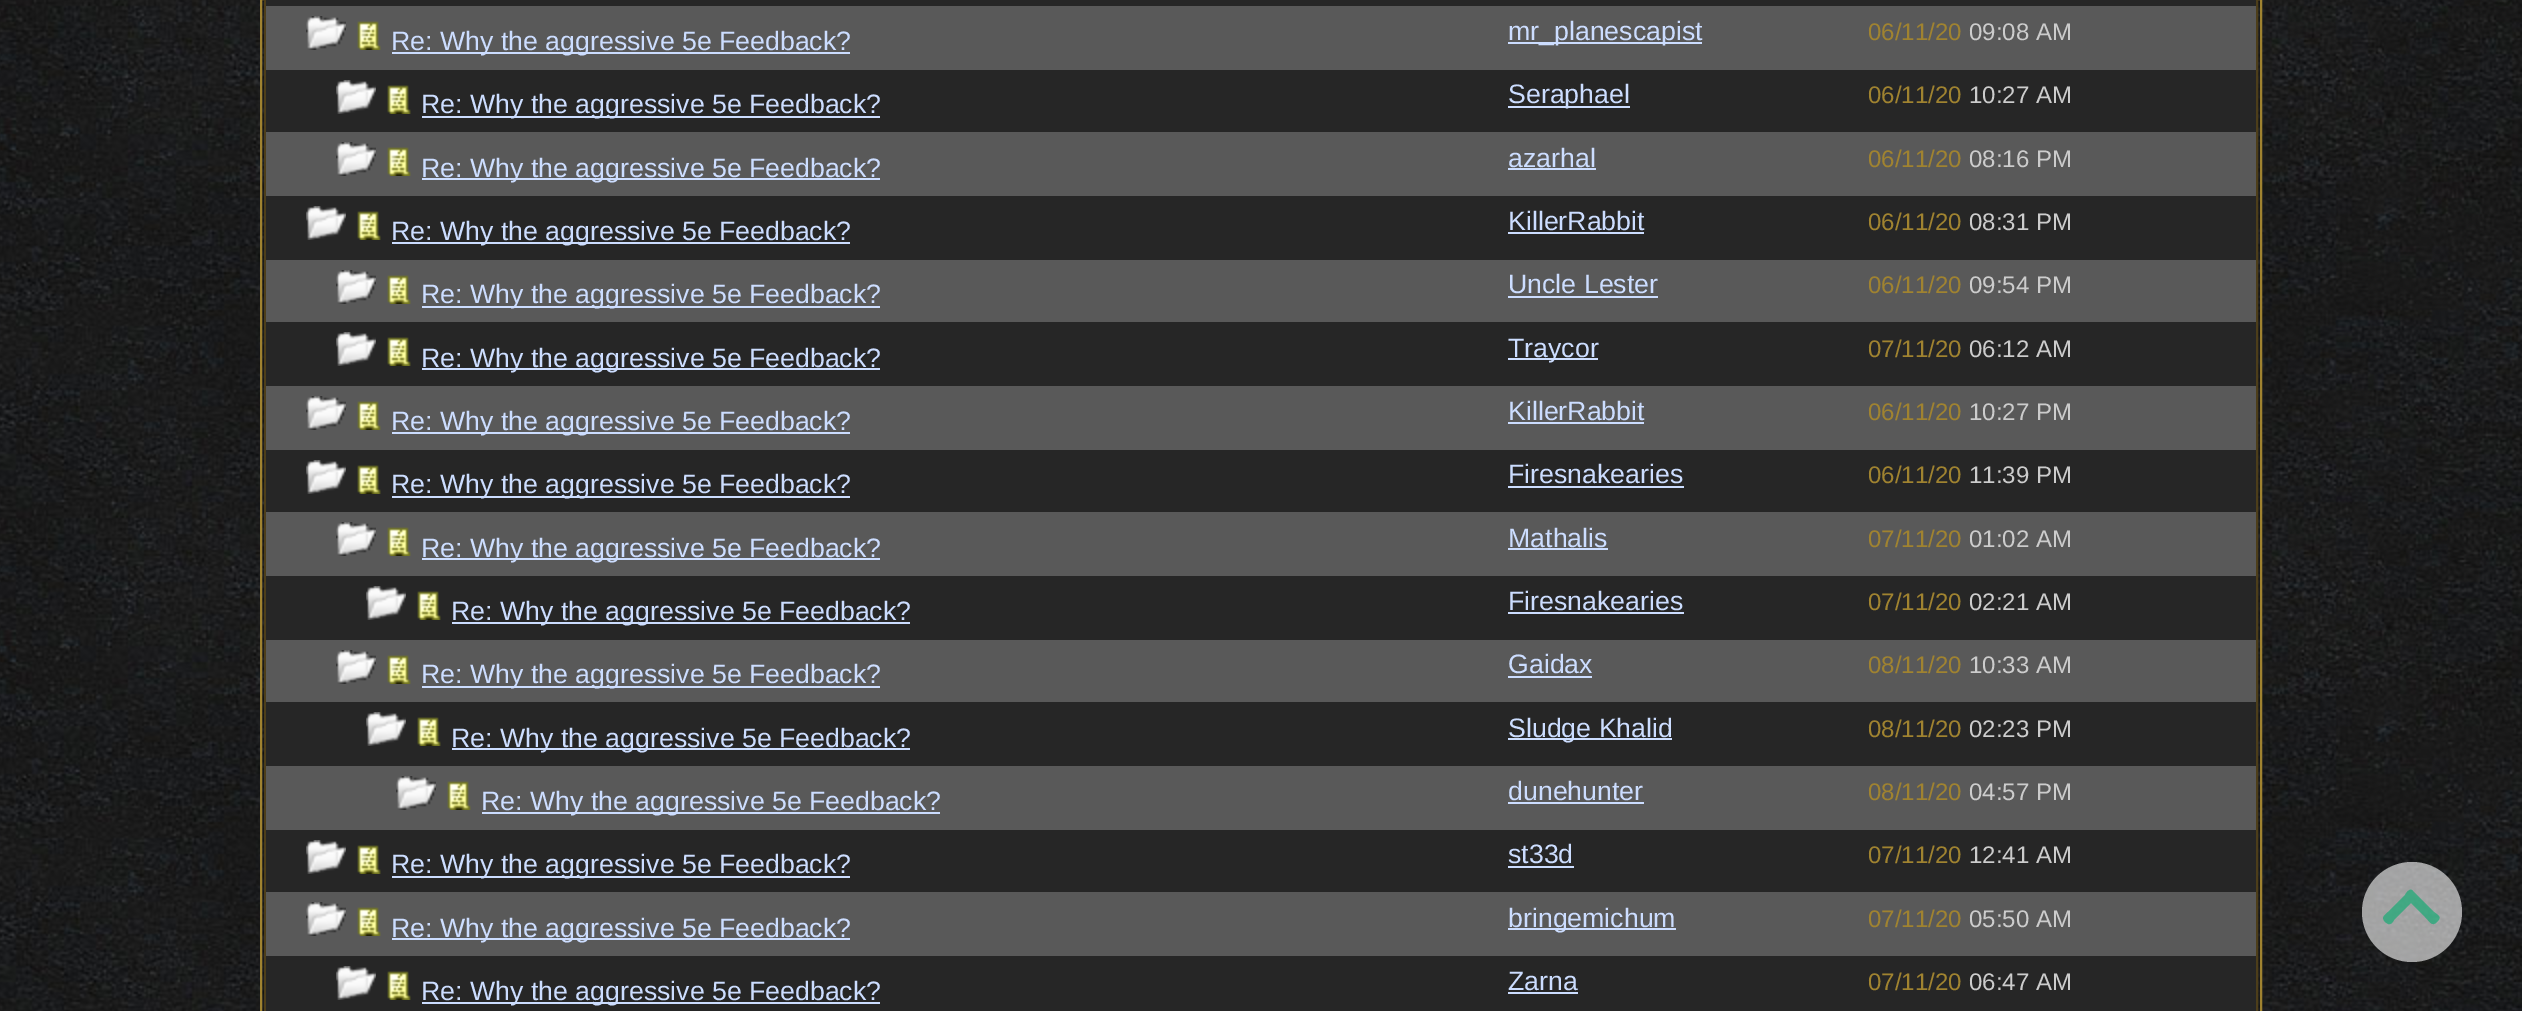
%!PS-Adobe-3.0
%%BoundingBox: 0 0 2522 1011
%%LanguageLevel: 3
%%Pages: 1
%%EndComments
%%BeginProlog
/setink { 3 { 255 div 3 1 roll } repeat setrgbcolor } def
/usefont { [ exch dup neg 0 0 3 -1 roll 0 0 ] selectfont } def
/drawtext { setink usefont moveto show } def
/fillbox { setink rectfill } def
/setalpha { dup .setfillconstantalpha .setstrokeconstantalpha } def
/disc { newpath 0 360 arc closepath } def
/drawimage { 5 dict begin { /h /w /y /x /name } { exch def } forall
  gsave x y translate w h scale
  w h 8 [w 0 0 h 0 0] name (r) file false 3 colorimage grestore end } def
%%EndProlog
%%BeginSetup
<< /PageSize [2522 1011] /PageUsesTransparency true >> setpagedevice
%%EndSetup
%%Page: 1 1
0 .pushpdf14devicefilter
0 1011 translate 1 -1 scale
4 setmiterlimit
0 0 2522 1011 255 255 255 fillbox
(assets/img1.rgb) 0 0 2522 1011 drawimage
160 131 48 setink
2 setlinewidth
261 -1 2000 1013 rectstroke
77 62 26 setink
265 -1 1992 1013 rectstroke
266 0 1990 6 38 38 38 fillbox
266 6 1990 64 89 89 89 fillbox
(assets/img2.rgb) 306 16 40 34 drawimage
(assets/img3.rgb) 357 21 24 29 drawimage
392 52 458 2 204 221 255 fillbox
(Re: Why the aggressive 5e Feedback?) 391 50 /LiberationSans-Regular 26.7 204 221 255 drawtext
1508 42 194 2 204 221 255 fillbox
(mr_planescapist) 1508 40 /LiberationSans-Regular 26.7 204 221 255 drawtext
(06/11/20) 1868 40 /LiberationSans-Regular 24 160 131 48 drawtext
(09:08 AM) 1969 40 /LiberationSans-Regular 24 204 204 204 drawtext
266 70 1990 62 38 38 38 fillbox
(assets/img4.rgb) 336 80 40 34 drawimage
(assets/img5.rgb) 387 85 24 29 drawimage
422 116 458 2 204 221 255 fillbox
(Re: Why the aggressive 5e Feedback?) 421 113 /LiberationSans-Regular 26.7 204 221 255 drawtext
1508 106 122 2 204 221 255 fillbox
(Seraphael) 1508 103 /LiberationSans-Regular 26.7 204 221 255 drawtext
(06/11/20) 1868 103 /LiberationSans-Regular 24 160 131 48 drawtext
(10:27 AM) 1969 103 /LiberationSans-Regular 24 204 204 204 drawtext
266 132 1990 64 89 89 89 fillbox
(assets/img2.rgb) 336 142 40 34 drawimage
(assets/img3.rgb) 387 147 24 29 drawimage
422 178 458 2 204 221 255 fillbox
(Re: Why the aggressive 5e Feedback?) 421 177 /LiberationSans-Regular 26.7 204 221 255 drawtext
(azarhal) 1508 167 /LiberationSans-Regular 26.7 204 221 255 drawtext
1508 168 88 2 204 221 255 fillbox
(06/11/20) 1868 167 /LiberationSans-Regular 24 160 131 48 drawtext
(08:16 PM) 1969 167 /LiberationSans-Regular 24 204 204 204 drawtext
266 196 1990 64 38 38 38 fillbox
(assets/img4.rgb) 306 206 40 34 drawimage
(assets/img5.rgb) 357 211 24 29 drawimage
392 242 458 2 204 221 255 fillbox
(Re: Why the aggressive 5e Feedback?) 391 240 /LiberationSans-Regular 26.7 204 221 255 drawtext
(KillerRabbit) 1508 230 /LiberationSans-Regular 26.7 204 221 255 drawtext
1508 232 136 2 204 221 255 fillbox
(06/11/20) 1868 230 /LiberationSans-Regular 24 160 131 48 drawtext
(08:31 PM) 1969 230 /LiberationSans-Regular 24 204 204 204 drawtext
266 260 1990 62 89 89 89 fillbox
(assets/img2.rgb) 336 270 40 34 drawimage
(assets/img3.rgb) 387 275 24 29 drawimage
422 306 458 2 204 221 255 fillbox
(Re: Why the aggressive 5e Feedback?) 421 303 /LiberationSans-Regular 26.7 204 221 255 drawtext
(Uncle Lester) 1508 293 /LiberationSans-Regular 26.7 204 221 255 drawtext
1508 296 150 2 204 221 255 fillbox
(06/11/20) 1868 293 /LiberationSans-Regular 24 160 131 48 drawtext
(09:54 PM) 1969 293 /LiberationSans-Regular 24 204 204 204 drawtext
266 322 1990 64 38 38 38 fillbox
(assets/img4.rgb) 336 332 40 34 drawimage
(assets/img5.rgb) 387 337 24 29 drawimage
422 368 458 2 204 221 255 fillbox
(Re: Why the aggressive 5e Feedback?) 421 367 /LiberationSans-Regular 26.7 204 221 255 drawtext
1508 358 90 2 204 221 255 fillbox
(Traycor) 1508 357 /LiberationSans-Regular 26.7 204 221 255 drawtext
(07/11/20) 1868 357 /LiberationSans-Regular 24 160 131 48 drawtext
(06:12 AM) 1969 357 /LiberationSans-Regular 24 204 204 204 drawtext
266 386 1990 64 89 89 89 fillbox
(assets/img2.rgb) 306 396 40 34 drawimage
(assets/img3.rgb) 357 401 24 29 drawimage
392 432 458 2 204 221 255 fillbox
(Re: Why the aggressive 5e Feedback?) 391 430 /LiberationSans-Regular 26.7 204 221 255 drawtext
(KillerRabbit) 1508 420 /LiberationSans-Regular 26.7 204 221 255 drawtext
1508 422 136 2 204 221 255 fillbox
(06/11/20) 1868 420 /LiberationSans-Regular 24 160 131 48 drawtext
(10:27 PM) 1969 420 /LiberationSans-Regular 24 204 204 204 drawtext
266 450 1990 62 38 38 38 fillbox
(assets/img4.rgb) 306 460 40 34 drawimage
(assets/img5.rgb) 357 465 24 29 drawimage
392 496 458 2 204 221 255 fillbox
(Re: Why the aggressive 5e Feedback?) 391 493 /LiberationSans-Regular 26.7 204 221 255 drawtext
(Firesnakearies) 1508 483 /LiberationSans-Regular 26.7 204 221 255 drawtext
1508 486 176 2 204 221 255 fillbox
(06/11/20) 1868 483 /LiberationSans-Regular 24 160 131 48 drawtext
(11:39 PM) 1969 483 /LiberationSans-Regular 24 204 204 204 drawtext
266 512 1990 64 89 89 89 fillbox
(assets/img2.rgb) 336 522 40 34 drawimage
(assets/img3.rgb) 387 527 24 29 drawimage
422 558 458 2 204 221 255 fillbox
(Re: Why the aggressive 5e Feedback?) 421 557 /LiberationSans-Regular 26.7 204 221 255 drawtext
(Mathalis) 1508 547 /LiberationSans-Regular 26.7 204 221 255 drawtext
1508 548 100 2 204 221 255 fillbox
(07/11/20) 1868 547 /LiberationSans-Regular 24 160 131 48 drawtext
(01:02 AM) 1969 547 /LiberationSans-Regular 24 204 204 204 drawtext
266 576 1990 64 38 38 38 fillbox
(assets/img4.rgb) 366 586 40 34 drawimage
(assets/img5.rgb) 417 591 24 29 drawimage
452 622 458 2 204 221 255 fillbox
(Re: Why the aggressive 5e Feedback?) 451 620 /LiberationSans-Regular 26.7 204 221 255 drawtext
(Firesnakearies) 1508 610 /LiberationSans-Regular 26.7 204 221 255 drawtext
1508 612 176 2 204 221 255 fillbox
(07/11/20) 1868 610 /LiberationSans-Regular 24 160 131 48 drawtext
(02:21 AM) 1969 610 /LiberationSans-Regular 24 204 204 204 drawtext
266 640 1990 62 89 89 89 fillbox
(assets/img2.rgb) 336 650 40 34 drawimage
(assets/img3.rgb) 387 655 24 29 drawimage
422 686 458 2 204 221 255 fillbox
(Re: Why the aggressive 5e Feedback?) 421 683 /LiberationSans-Regular 26.7 204 221 255 drawtext
(Gaidax) 1508 673 /LiberationSans-Regular 26.7 204 221 255 drawtext
1508 676 84 2 204 221 255 fillbox
(08/11/20) 1868 673 /LiberationSans-Regular 24 160 131 48 drawtext
(10:33 AM) 1969 673 /LiberationSans-Regular 24 204 204 204 drawtext
266 702 1990 64 38 38 38 fillbox
(assets/img4.rgb) 366 712 40 34 drawimage
(assets/img5.rgb) 417 717 24 29 drawimage
452 748 458 2 204 221 255 fillbox
(Re: Why the aggressive 5e Feedback?) 451 747 /LiberationSans-Regular 26.7 204 221 255 drawtext
1508 738 164 2 204 221 255 fillbox
(Sludge Khalid) 1508 737 /LiberationSans-Regular 26.7 204 221 255 drawtext
(08/11/20) 1868 737 /LiberationSans-Regular 24 160 131 48 drawtext
(02:23 PM) 1969 737 /LiberationSans-Regular 24 204 204 204 drawtext
266 766 1990 64 89 89 89 fillbox
(assets/img2.rgb) 396 776 40 34 drawimage
(assets/img3.rgb) 447 781 24 29 drawimage
482 812 458 2 204 221 255 fillbox
(Re: Why the aggressive 5e Feedback?) 481 810 /LiberationSans-Regular 26.7 204 221 255 drawtext
(dunehunter) 1508 800 /LiberationSans-Regular 26.7 204 221 255 drawtext
1508 802 136 2 204 221 255 fillbox
(08/11/20) 1868 800 /LiberationSans-Regular 24 160 131 48 drawtext
(04:57 PM) 1969 800 /LiberationSans-Regular 24 204 204 204 drawtext
266 830 1990 62 38 38 38 fillbox
(assets/img4.rgb) 306 840 40 34 drawimage
(assets/img5.rgb) 357 845 24 29 drawimage
392 876 458 2 204 221 255 fillbox
(Re: Why the aggressive 5e Feedback?) 391 873 /LiberationSans-Regular 26.7 204 221 255 drawtext
(st33d) 1508 863 /LiberationSans-Regular 26.7 204 221 255 drawtext
1508 866 66 2 204 221 255 fillbox
(07/11/20) 1868 863 /LiberationSans-Regular 24 160 131 48 drawtext
(12:41 AM) 1969 863 /LiberationSans-Regular 24 204 204 204 drawtext
266 892 1990 64 89 89 89 fillbox
(assets/img2.rgb) 306 902 40 34 drawimage
(assets/img3.rgb) 357 907 24 29 drawimage
392 938 458 2 204 221 255 fillbox
(Re: Why the aggressive 5e Feedback?) 391 937 /LiberationSans-Regular 26.7 204 221 255 drawtext
1508 928 168 2 204 221 255 fillbox
(bringemichum) 1508 927 /LiberationSans-Regular 26.7 204 221 255 drawtext
(07/11/20) 1868 927 /LiberationSans-Regular 24 160 131 48 drawtext
(05:50 AM) 1969 927 /LiberationSans-Regular 24 204 204 204 drawtext
266 956 1990 55 38 38 38 fillbox
(assets/img4.rgb) 336 966 40 34 drawimage
(assets/img5.rgb) 387 971 24 29 drawimage
422 1002 458 2 204 221 255 fillbox
(Re: Why the aggressive 5e Feedback?) 421 1000 /LiberationSans-Regular 26.7 204 221 255 drawtext
(Zarna) 1508 990 /LiberationSans-Regular 26.7 204 221 255 drawtext
1508 992 70 2 204 221 255 fillbox
(07/11/20) 1868 990 /LiberationSans-Regular 24 160 131 48 drawtext
(06:47 AM) 1969 990 /LiberationSans-Regular 24 204 204 204 drawtext
0.6 setalpha
255 255 255 setink
2412 912 50 disc fill
0 171 108 setink
2413 891 moveto 2434 912 lineto 2439 916 2442 917 2437 922 curveto 2432 927 2430 922 2425 917 curveto 2411 903 lineto 2394 920 lineto 2393 922 2391 925 2388 924 curveto 2385 922 lineto 2381 917 2384 916 2388 912 curveto 2405 895 lineto 2406 893 2410 887 2413 891 curveto closepath fill
.poppdf14devicefilter showpage
%%EOF
